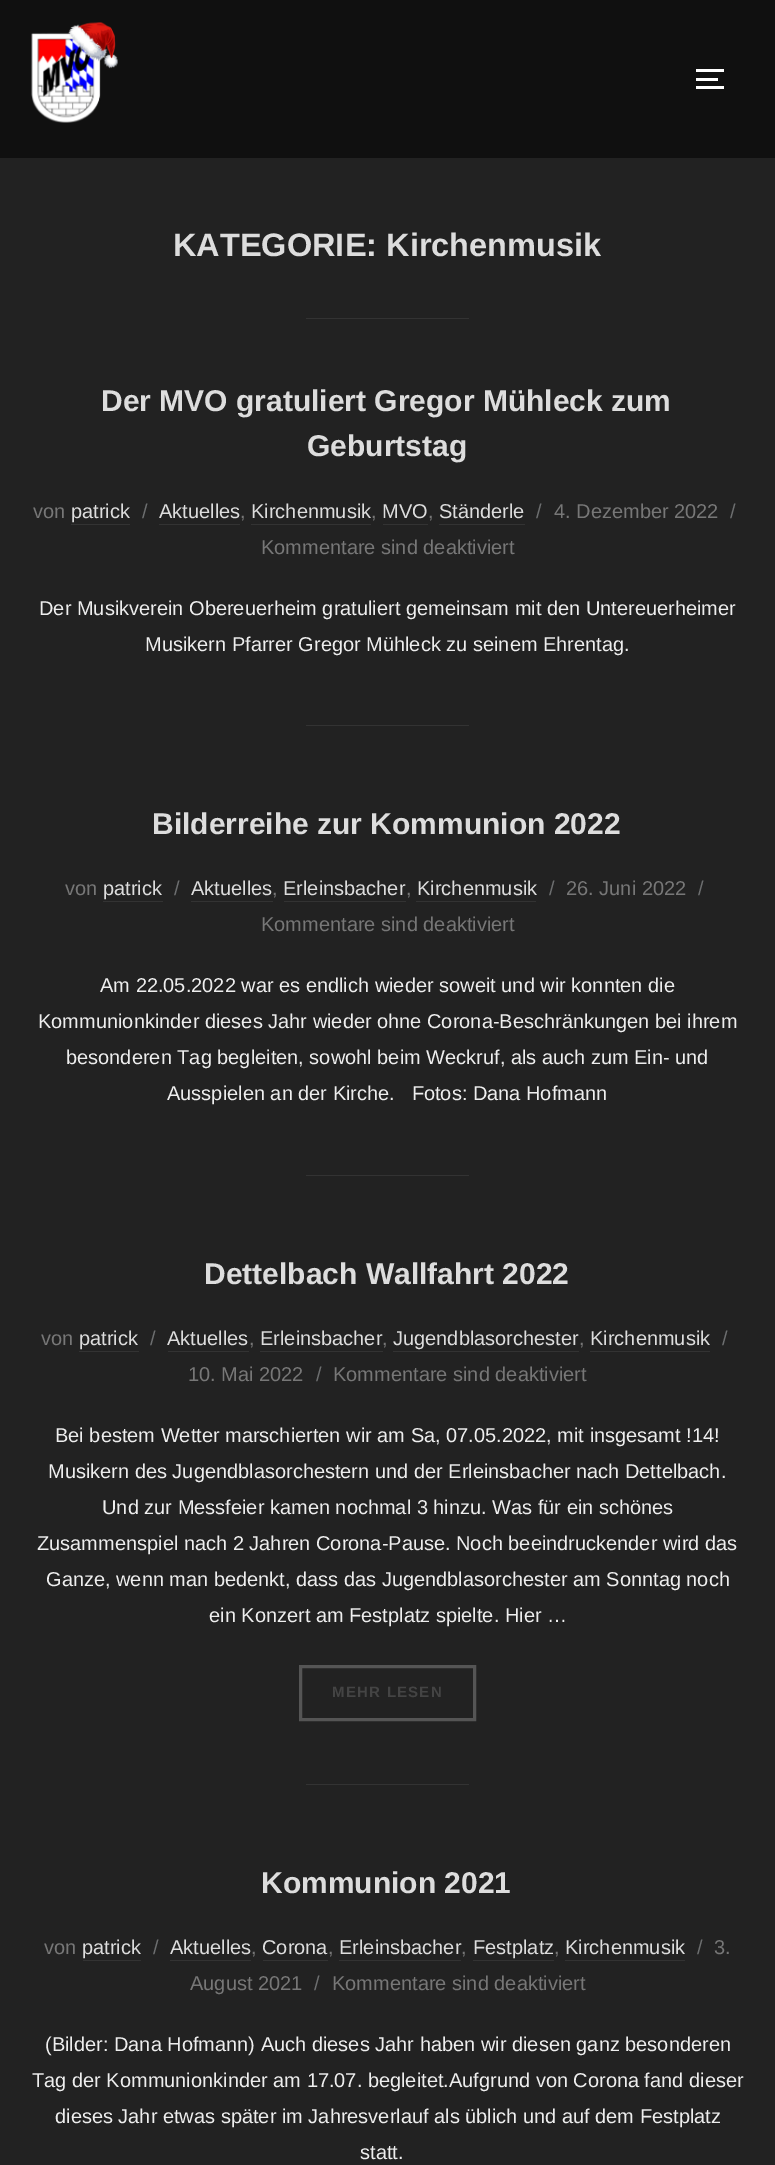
%!PS-Adobe-3.0
%%BoundingBox: 0 0 775 2165
%%LanguageLevel: 3
%%Pages: 1
%%EndComments
%%BeginProlog
/setink { 3 { 255 div 3 1 roll } repeat setrgbcolor } def
/usefont { [ exch dup neg 0 0 3 -1 roll 0 0 ] selectfont } def
/drawtext { setink usefont moveto show } def
/fillbox { setink rectfill } def
/drawimage { 5 dict begin { /h /w /y /x /name } { exch def } forall
  gsave x y translate w h scale
  w h 8 [w 0 0 h 0 0] name (r) file false 3 colorimage grestore end } def
%%EndProlog
%%BeginSetup
<< /PageSize [775 2165] >> setpagedevice
%%EndSetup
%%Page: 1 1
0 2165 translate 1 -1 scale
4 setmiterlimit
0 0 775 2165 34 34 34 fillbox
0 0 775 158 16 16 16 fillbox
(assets/img1.rgb) 31 22 87 101 drawimage
696 69 28 3 255 255 255 fillbox
696 78 22 3 255 255 255 fillbox
696 86 28 3 255 255 255 fillbox
(KATEGORIE: Kirchenmusik) 173 256 /LiberationSans-Bold 32.5 221 221 221 drawtext
306 318 163 1 51 51 51 fillbox
(Der MVO gratuliert Gregor Mühleck zum) 101 411 /LiberationSans-Bold 30 221 221 221 drawtext
(Geburtstag) 307 456 /LiberationSans-Bold 30 221 221 221 drawtext
(von) 33 518 /LiberationSans-Regular 20 119 119 119 drawtext
(patrick) 71 518 /LiberationSans-Regular 20 221 221 221 drawtext
71 524 59 1 51 51 51 fillbox
(/) 142 518 /LiberationSans-Regular 20 108 110 111 drawtext
(Aktuelles) 159 518 /LiberationSans-Regular 20 221 221 221 drawtext
(,) 240 518 /LiberationSans-Regular 20 119 119 119 drawtext
159 524 81 1 51 51 51 fillbox
(Kirchenmusik) 251 518 /LiberationSans-Regular 20 221 221 221 drawtext
(,) 371 518 /LiberationSans-Regular 20 119 119 119 drawtext
251 524 120 1 51 51 51 fillbox
(MVO) 382 518 /LiberationSans-Regular 20 221 221 221 drawtext
(,) 428 518 /LiberationSans-Regular 20 119 119 119 drawtext
383 524 45 1 51 51 51 fillbox
439 524 86 1 51 51 51 fillbox
(Ständerle) 439 518 /LiberationSans-Regular 20 221 221 221 drawtext
(/) 536 518 /LiberationSans-Regular 20 108 110 111 drawtext
(4. Dezember 2022) 554 518 /LiberationSans-Regular 20 119 119 119 drawtext
(/) 730 518 /LiberationSans-Regular 20 108 110 111 drawtext
(Kommentare sind deaktiviert) 261 554 /LiberationSans-Regular 20 119 119 119 drawtext
(Der Musikverein Obereuerheim gratuliert gemeinsam mit den Untereuerheimer) 39 615 /LiberationSans-Regular 20 238 238 238 drawtext
(Musikern Pfarrer Gregor Mühleck zu seinem Ehrentag.) 145 651 /LiberationSans-Regular 20 238 238 238 drawtext
306 725 163 1 51 51 51 fillbox
(Bilderreihe zur Kommunion 2022) 152 834 /LiberationSans-Bold 30 221 221 221 drawtext
(von) 65 895 /LiberationSans-Regular 20 119 119 119 drawtext
(patrick) 103 895 /LiberationSans-Regular 20 221 221 221 drawtext
103 901 60 1 51 51 51 fillbox
(/) 174 895 /LiberationSans-Regular 20 108 110 111 drawtext
(Aktuelles) 191 895 /LiberationSans-Regular 20 221 221 221 drawtext
(,) 272 895 /LiberationSans-Regular 20 119 119 119 drawtext
191 901 82 1 51 51 51 fillbox
(Erleinsbacher) 283 895 /LiberationSans-Regular 20 221 221 221 drawtext
(,) 406 895 /LiberationSans-Regular 20 119 119 119 drawtext
284 901 122 1 51 51 51 fillbox
416 901 120 1 51 51 51 fillbox
(Kirchenmusik) 417 895 /LiberationSans-Regular 20 221 221 221 drawtext
(/) 549 895 /LiberationSans-Regular 20 108 110 111 drawtext
(26. Juni 2022) 566 895 /LiberationSans-Regular 20 119 119 119 drawtext
(/) 698 895 /LiberationSans-Regular 20 108 110 111 drawtext
(Kommentare sind deaktiviert) 261 931 /LiberationSans-Regular 20 119 119 119 drawtext
(Am 22.05.2022 war es endlich wieder soweit und wir konnten die) 100 992 /LiberationSans-Regular 20 238 238 238 drawtext
(Kommunionkinder dieses Jahr wieder ohne Corona-Beschränkungen bei ihrem) 38 1028 /LiberationSans-Regular 20 238 238 238 drawtext
(besonderen Tag begleiten, sowohl beim Weckruf, als auch zum Ein- und) 66 1064 /LiberationSans-Regular 20 238 238 238 drawtext
(Ausspielen an der Kirche.   Fotos: Dana Hofmann) 167 1100 /LiberationSans-Regular 20 238 238 238 drawtext
306 1175 163 1 51 51 51 fillbox
(Dettelbach Wallfahrt 2022) 204 1284 /LiberationSans-Bold 30 221 221 221 drawtext
(von) 41 1345 /LiberationSans-Regular 20 119 119 119 drawtext
(patrick) 79 1345 /LiberationSans-Regular 20 221 221 221 drawtext
79 1351 60 1 51 51 51 fillbox
(/) 150 1345 /LiberationSans-Regular 20 108 110 111 drawtext
(Aktuelles) 167 1345 /LiberationSans-Regular 20 221 221 221 drawtext
(,) 249 1345 /LiberationSans-Regular 20 119 119 119 drawtext
168 1351 81 1 51 51 51 fillbox
(Erleinsbacher) 260 1345 /LiberationSans-Regular 20 221 221 221 drawtext
(,) 382 1345 /LiberationSans-Regular 20 119 119 119 drawtext
260 1351 123 1 51 51 51 fillbox
(Jugendblasorchester) 393 1345 /LiberationSans-Regular 20 221 221 221 drawtext
(,) 579 1345 /LiberationSans-Regular 20 119 119 119 drawtext
393 1351 186 1 51 51 51 fillbox
590 1351 120 1 51 51 51 fillbox
(Kirchenmusik) 590 1345 /LiberationSans-Regular 20 221 221 221 drawtext
(/) 722 1345 /LiberationSans-Regular 20 108 110 111 drawtext
(10. Mai 2022) 188 1381 /LiberationSans-Regular 20 119 119 119 drawtext
(/) 316 1381 /LiberationSans-Regular 20 108 110 111 drawtext
(Kommentare sind deaktiviert) 333 1381 /LiberationSans-Regular 20 119 119 119 drawtext
(Bei bestem Wetter marschierten wir am Sa, 07.05.2022, mit insgesamt !14!) 55 1442 /LiberationSans-Regular 20 238 238 238 drawtext
(Musikern des Jugendblasorchestern und der Erleinsbacher nach Dettelbach.) 48 1478 /LiberationSans-Regular 20 238 238 238 drawtext
(Und zur Messfeier kamen nochmal 3 hinzu. Was für ein schönes) 102 1514 /LiberationSans-Regular 20 238 238 238 drawtext
(Zusammenspiel nach 2 Jahren Corona-Pause. Noch beeindruckender wird das) 37 1550 /LiberationSans-Regular 20 238 238 238 drawtext
(Ganze, wenn man bedenkt, dass das Jugendblasorchester am Sonntag noch) 46 1586 /LiberationSans-Regular 20 238 238 238 drawtext
(ein Konzert am Festplatz spielte. Hier …) 209 1622 /LiberationSans-Regular 20 238 238 238 drawtext
85 85 85 setink
3 setlinewidth
300.5 1666.5 174 53 rectstroke
/LiberationSans-Bold 15 usefont
68 68 68 setink
332 1697 moveto 1.25 0 (MEHR LESEN) ashow
306 1784 163 1 51 51 51 fillbox
(Kommunion 2021) 261 1893 /LiberationSans-Bold 30 221 221 221 drawtext
(von) 44 1954 /LiberationSans-Regular 20 119 119 119 drawtext
(patrick) 82 1954 /LiberationSans-Regular 20 221 221 221 drawtext
83 1960 58 1 51 51 51 fillbox
(/) 153 1954 /LiberationSans-Regular 20 108 110 111 drawtext
(Aktuelles) 170 1954 /LiberationSans-Regular 20 221 221 221 drawtext
(,) 251 1954 /LiberationSans-Regular 20 119 119 119 drawtext
170 1960 81 1 51 51 51 fillbox
(Corona) 262 1954 /LiberationSans-Regular 20 221 221 221 drawtext
(,) 328 1954 /LiberationSans-Regular 20 119 119 119 drawtext
263 1960 65 1 51 51 51 fillbox
(Erleinsbacher) 339 1954 /LiberationSans-Regular 20 221 221 221 drawtext
(,) 461 1954 /LiberationSans-Regular 20 119 119 119 drawtext
339 1960 122 1 51 51 51 fillbox
(Festplatz) 473 1954 /LiberationSans-Regular 20 221 221 221 drawtext
(,) 554 1954 /LiberationSans-Regular 20 119 119 119 drawtext
473 1960 81 1 51 51 51 fillbox
565 1960 120 1 51 51 51 fillbox
(Kirchenmusik) 565 1954 /LiberationSans-Regular 20 221 221 221 drawtext
(/) 697 1954 /LiberationSans-Regular 20 108 110 111 drawtext
(3.) 714 1954 /LiberationSans-Regular 20 119 119 119 drawtext
(August 2021) 190 1990 /LiberationSans-Regular 20 119 119 119 drawtext
(/) 314 1990 /LiberationSans-Regular 20 108 110 111 drawtext
(Kommentare sind deaktiviert) 332 1990 /LiberationSans-Regular 20 119 119 119 drawtext
(\(Bilder: Dana Hofmann\) Auch dieses Jahr haben wir diesen ganz besonderen) 45 2051 /LiberationSans-Regular 20 238 238 238 drawtext
(Tag der Kommunionkinder am 17.07. begleitet.Aufgrund von Corona fand dieser) 32 2087 /LiberationSans-Regular 20 238 238 238 drawtext
(dieses Jahr etwas später im Jahresverlauf als üblich und auf dem Festplatz) 55 2123 /LiberationSans-Regular 20 238 238 238 drawtext
(statt.) 360 2159 /LiberationSans-Regular 20 238 238 238 drawtext
showpage
%%EOF
